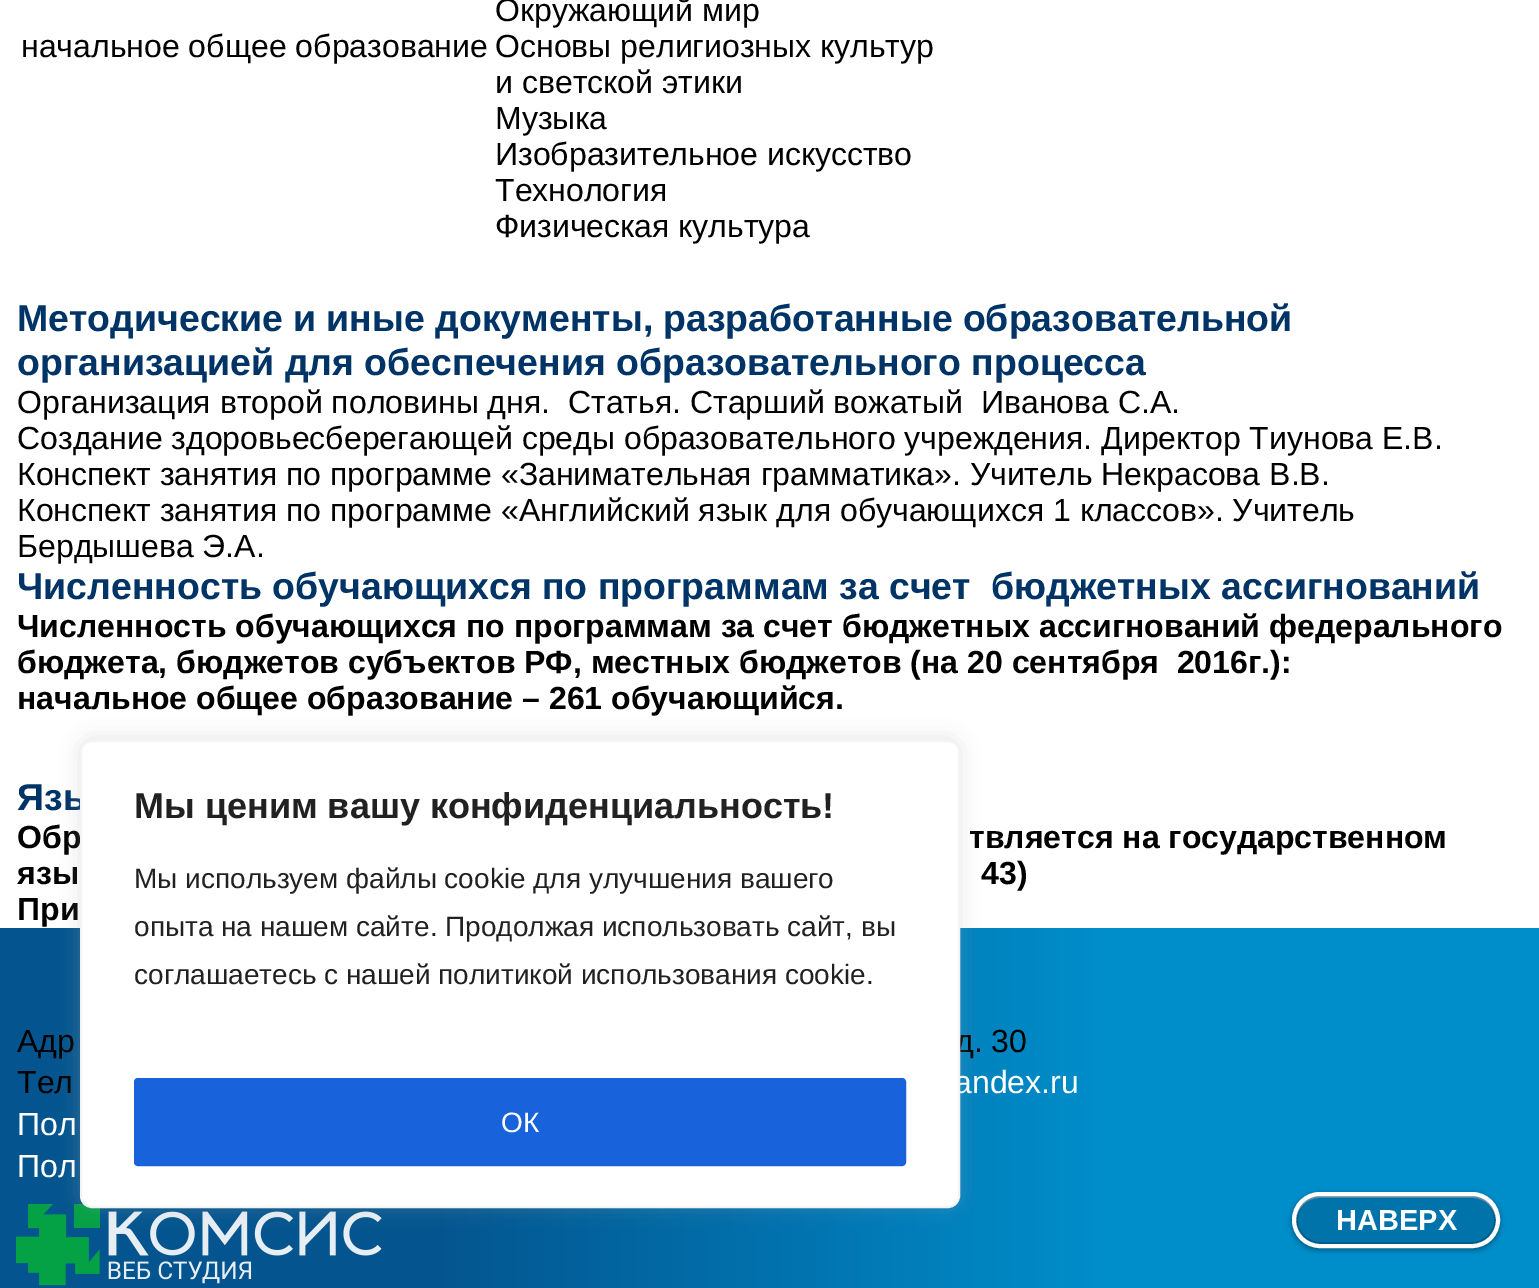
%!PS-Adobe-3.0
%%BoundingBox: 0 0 1539 1288
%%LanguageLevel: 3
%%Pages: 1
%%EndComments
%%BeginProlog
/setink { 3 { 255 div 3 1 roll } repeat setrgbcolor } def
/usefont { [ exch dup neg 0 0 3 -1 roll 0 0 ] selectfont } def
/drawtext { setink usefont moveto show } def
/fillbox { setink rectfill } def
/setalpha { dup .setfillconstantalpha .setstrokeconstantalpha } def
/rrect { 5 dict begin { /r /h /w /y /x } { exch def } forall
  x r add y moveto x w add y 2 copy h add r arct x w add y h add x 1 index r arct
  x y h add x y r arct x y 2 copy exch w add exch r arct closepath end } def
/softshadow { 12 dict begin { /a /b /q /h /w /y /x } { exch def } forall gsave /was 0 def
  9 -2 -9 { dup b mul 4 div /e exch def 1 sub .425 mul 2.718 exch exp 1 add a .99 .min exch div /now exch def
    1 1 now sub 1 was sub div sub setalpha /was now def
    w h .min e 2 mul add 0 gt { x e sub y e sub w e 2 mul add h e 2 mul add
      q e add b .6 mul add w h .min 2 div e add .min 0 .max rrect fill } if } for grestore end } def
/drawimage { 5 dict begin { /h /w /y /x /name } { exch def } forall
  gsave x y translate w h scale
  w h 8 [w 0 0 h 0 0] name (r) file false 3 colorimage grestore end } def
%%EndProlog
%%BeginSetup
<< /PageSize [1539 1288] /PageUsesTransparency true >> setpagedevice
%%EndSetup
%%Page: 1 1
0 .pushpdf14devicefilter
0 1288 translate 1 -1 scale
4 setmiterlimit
0 0 1539 1288 255 255 255 fillbox
(начальное общее образование) 21 57 /LiberationSans-Regular 32 0 0 0 drawtext
(Окружающий мир) 495 21 /LiberationSans-Regular 32 0 0 0 drawtext
(Основы религиозных культур) 495 57 /LiberationSans-Regular 32 0 0 0 drawtext
(и светской этики) 495 93 /LiberationSans-Regular 32 0 0 0 drawtext
(Музыка) 495 129 /LiberationSans-Regular 32 0 0 0 drawtext
(Изобразительное искусство) 495 165 /LiberationSans-Regular 32 0 0 0 drawtext
(Технология) 495 201 /LiberationSans-Regular 32 0 0 0 drawtext
(Физическая культура) 495 237 /LiberationSans-Regular 32 0 0 0 drawtext
/LiberationSans-Bold 37.45 usefont
0 51 102 setink
17 331 moveto -0.25 0 32 (Методические и иные документы, разработанные образовательной) widthshow
(организацией для обеспечения образовательного процесса) 17 375 /LiberationSans-Bold 37.45 0 51 102 drawtext
(Организация второй половины дня.  Статья. Старший вожатый  Иванова С.А.) 17 413 /LiberationSans-Regular 32 0 0 0 drawtext
(Создание здоровьесберегающей среды образовательного учреждения. Директор Тиунова Е.В.) 17 449 /LiberationSans-Regular 32 0 0 0 drawtext
(Конспект занятия по программе «Занимательная грамматика». Учитель Некрасова В.В.) 17 485 /LiberationSans-Regular 32 0 0 0 drawtext
(Конспект занятия по программе «Английский язык для обучающихся 1 классов». Учитель) 17 521 /LiberationSans-Regular 32 0 0 0 drawtext
(Бердышева Э.А.) 17 557 /LiberationSans-Regular 32 0 0 0 drawtext
/LiberationSans-Bold 37.45 usefont
0 51 102 setink
17 599 moveto -0.25 0 32 (Численность обучающихся по программам за счет  бюджетных ассигнований) widthshow
(Численность обучающихся по программам за счет бюджетных ассигнований федерального) 17 637 /LiberationSans-Bold 32 0 0 0 drawtext
(бюджета, бюджетов субъектов РФ, местных бюджетов \(на 20 сентября  2016г.\):) 17 673 /LiberationSans-Bold 32 0 0 0 drawtext
(начальное общее образование – 261 обучающийся.) 17 709 /LiberationSans-Bold 32 0 0 0 drawtext
(Язы) 17 810 /LiberationSans-Bold 37.45 0 51 102 drawtext
(Обр) 17 848 /LiberationSans-Bold 32 0 0 0 drawtext
(твляется на государственном) 969 848 /LiberationSans-Bold 32 0 0 0 drawtext
(язы) 17 884 /LiberationSans-Bold 32 0 0 0 drawtext
(43\)) 981 884 /LiberationSans-Bold 32 0 0 0 drawtext
(При) 17 920 /LiberationSans-Bold 32 0 0 0 drawtext
gsave 0 928 moveto 1539 928 lineto 1539 1288 lineto 0 1288 lineto closepath clip newpath
<< /ShadingType 2 /ColorSpace /DeviceRGB /Coords [0 1111 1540 1111] /Extend [true true] /Function << /FunctionType 3 /Domain [0 1] /Functions [<< /FunctionType 2 /Domain [0 1] /C0 [0.016 0.333 0.561] /C1 [0.016 0.333 0.561] /N 1 >> << /FunctionType 2 /Domain [0 1] /C0 [0.016 0.333 0.561] /C1 [0 0.557 0.796] /N 1 >> << /FunctionType 2 /Domain [0 1] /C0 [0 0.557 0.796] /C1 [0 0.557 0.796] /N 1 >>] /Bounds [0.28 0.72] /Encode [0 1 0 1 0 1] >> >> shfill grestore
(Адр) 17 1052 /LiberationSans-Regular 32 0 0 0 drawtext
(д. 30) 955 1052 /LiberationSans-Regular 32 0 0 0 drawtext
(Тел) 17 1093 /LiberationSans-Regular 32 0 0 0 drawtext
(andex.ru) 954 1093 /LiberationSans-Regular 32 255 255 255 drawtext
(Пол) 17 1135 /LiberationSans-Regular 32 255 255 255 drawtext
(Пол) 17 1177 /LiberationSans-Regular 32 255 255 255 drawtext
(assets/img1.rgb) 16 1204 366 82 drawimage
172 171 171 setink
80 738 880 468 12 10 0.3 softshadow
255 255 255 setink
81 741 878 466 11 rrect gsave fill grestore
244 244 244 setink
2 setlinewidth
stroke
(Мы ценим вашу конфиденциальность!) 134 818 /LiberationSans-Bold 36 33 33 33 drawtext
(Мы используем файлы cookie для улучшения вашего) 134 888 /LiberationSans-Regular 28 33 33 33 drawtext
(опыта на нашем сайте. Продолжая использовать сайт, вы) 134 936 /LiberationSans-Regular 28 33 33 33 drawtext
(соглашаетесь с нашей политикой использования cookie.) 134 984 /LiberationSans-Regular 28 33 33 33 drawtext
24 99 220 setink
136 1080 768 84 2 rrect gsave fill grestore
4 setlinewidth
stroke
(ОК) 501 1132 /LiberationSans-Regular 28 255 255 255 drawtext
0 1 1 setink
1292 1194 208 56 28 3 0.4 softshadow
0 115 170 setink
1296 1196 200 48 24 rrect fill
0.4 setalpha
254 254 255 setink
1320 1198 moveto 1472 1198 lineto 1485 1198 1495 1208 1496 1221 curveto 1496 1220 lineto 1496 1207 1485 1196 1472 1196 curveto 1320 1196 lineto 1307 1196 1296 1207 1296 1220 curveto 1296 1221 lineto 1297 1208 1307 1198 1320 1198 curveto closepath fill
0.2 setalpha
0 1 1 setink
2 setlinewidth
1297 1197 198 46 23 rrect stroke
1 setalpha
254 254 255 setink
4 setlinewidth
1294 1194 204 52 26 rrect stroke
(НАВЕРХ) 1336 1230 /LiberationSans-Bold 29 255 255 255 drawtext
.poppdf14devicefilter showpage
%%EOF
